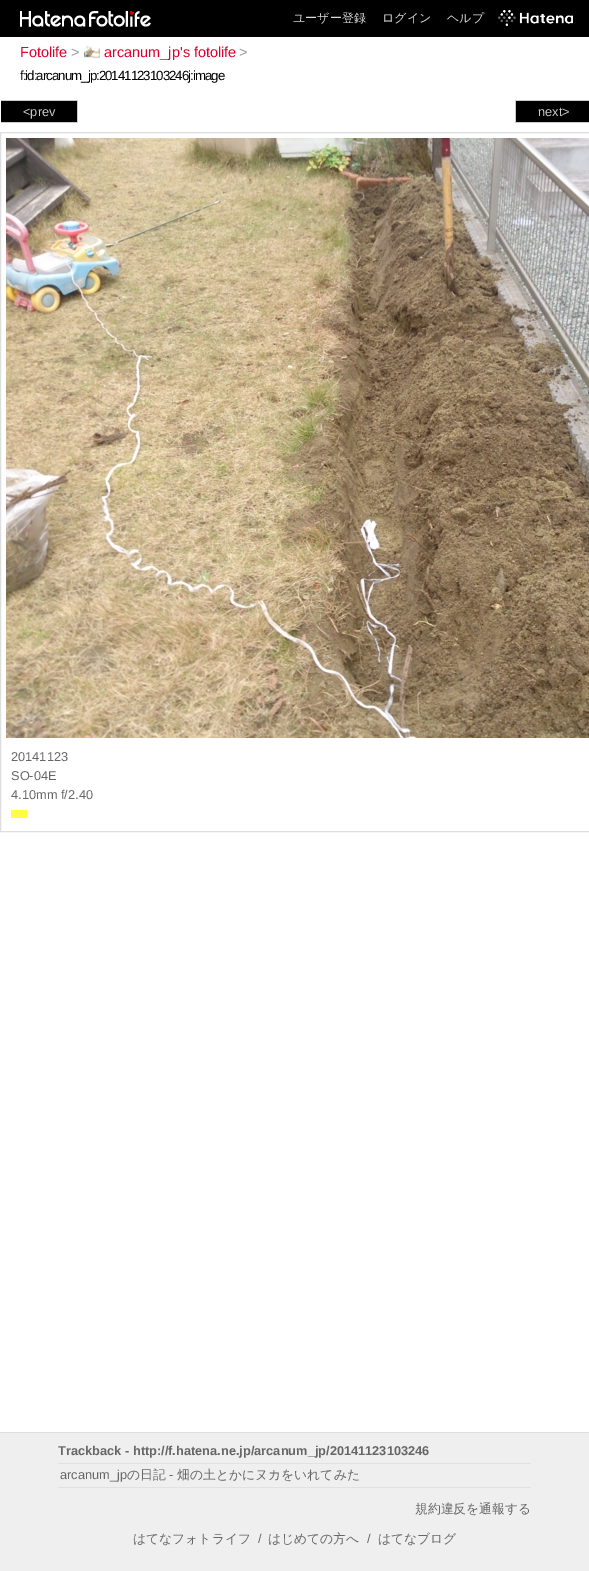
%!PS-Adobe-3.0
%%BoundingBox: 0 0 589 1571
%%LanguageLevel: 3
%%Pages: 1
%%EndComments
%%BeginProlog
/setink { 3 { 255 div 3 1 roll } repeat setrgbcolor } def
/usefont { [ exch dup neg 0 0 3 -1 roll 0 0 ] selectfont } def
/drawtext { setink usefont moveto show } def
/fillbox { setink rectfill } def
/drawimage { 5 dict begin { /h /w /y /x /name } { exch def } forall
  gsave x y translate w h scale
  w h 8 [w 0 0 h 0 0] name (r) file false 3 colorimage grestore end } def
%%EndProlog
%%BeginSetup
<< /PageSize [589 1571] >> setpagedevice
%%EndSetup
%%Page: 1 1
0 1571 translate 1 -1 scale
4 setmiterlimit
0 0 589 1571 239 239 239 fillbox
0 0 589 37 0 0 0 fillbox
(assets/img1.rgb) 20 11 66 16 drawimage
(assets/img2.rgb) 89 11 62 16 drawimage
(ユーザー登録) 293 22 /WenQuanYiZenHei-Medium 12 221 221 221 drawtext
(ログイン) 382 22 /WenQuanYiZenHei-Medium 12 221 221 221 drawtext
(ヘルプ) 447 22 /WenQuanYiZenHei-Medium 12 221 221 221 drawtext
(assets/img3.rgb) 498 10 75 16 drawimage
0 37 589 1395 255 255 255 fillbox
(Fotolife) 20 57 /LiberationSans-Regular 14.5 222 0 47 drawtext
(>) 71 57 /LiberationSans-Regular 14.5 153 153 153 drawtext
(assets/img4.rgb) 84 44 16 15 drawimage
(arcanum_jp's fotolife) 104 57 /LiberationSans-Regular 14.5 222 0 47 drawtext
(>) 239 57 /LiberationSans-Regular 14.5 153 153 153 drawtext
/LiberationSans-Regular 13.3 usefont
0 0 0 setink
20 80 moveto -1 0 (f:id:arcanum_jp:20141123103246j:image) ashow
0 1432 589 1 222 222 222 fillbox
1 101 76 21 0 0 0 fillbox
1 100 77 1 204 204 204 fillbox
77 100 1 23 204 204 204 fillbox
1 122 77 1 204 204 204 fillbox
(<prev) 23 116 /LiberationSans-Regular 12.8 204 204 204 drawtext
516 101 73 21 0 0 0 fillbox
515 100 74 1 204 204 204 fillbox
515 122 74 1 204 204 204 fillbox
515 100 1 23 204 204 204 fillbox
(next>) 538 116 /LiberationSans-Regular 12.8 204 204 204 drawtext
222 222 222 setink
0.5 132.5 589 699 rectstroke
(assets/img5.rgb) 6 138 583 600 drawimage
(20141123) 11 761 /LiberationSans-Regular 12.8 102 102 102 drawtext
(SO-04E) 11 780 /LiberationSans-Regular 12.8 102 102 102 drawtext
(4.10mm f/2.40) 11 799 /LiberationSans-Regular 12.8 102 102 102 drawtext
11 810 16 8 255 255 64 fillbox
(Trackback - http://f.hatena.ne.jp/arcanum_jp/20141123103246) 58 1455 /LiberationSans-Bold 12.8 102 102 102 drawtext
58 1463 473 1 225 225 225 fillbox
58 1487 473 1 225 225 225 fillbox
(arcanum_jp) 60 1479 /LiberationSans-Regular 12.8 102 102 102 drawtext
(の日記) 127 1479 /WenQuanYiZenHei-Medium 12.8 102 102 102 drawtext
(-) 169 1479 /LiberationSans-Regular 12.8 102 102 102 drawtext
(畑の土とかにヌカをいれてみた) 177 1479 /WenQuanYiZenHei-Medium 12.8 102 102 102 drawtext
(規約違反を通報する) 415 1513 /WenQuanYiZenHei-Medium 12.8 102 102 102 drawtext
(はてなフォトライフ) 133 1543 /WenQuanYiZenHei-Medium 12.8 102 102 102 drawtext
(/) 258 1543 /LiberationSans-Regular 12.8 102 102 102 drawtext
(はじめての方へ) 268 1543 /WenQuanYiZenHei-Medium 12.8 102 102 102 drawtext
(/) 367 1543 /LiberationSans-Regular 12.8 102 102 102 drawtext
(はてなブログ) 378 1543 /WenQuanYiZenHei-Medium 12.8 102 102 102 drawtext
showpage
%%EOF
